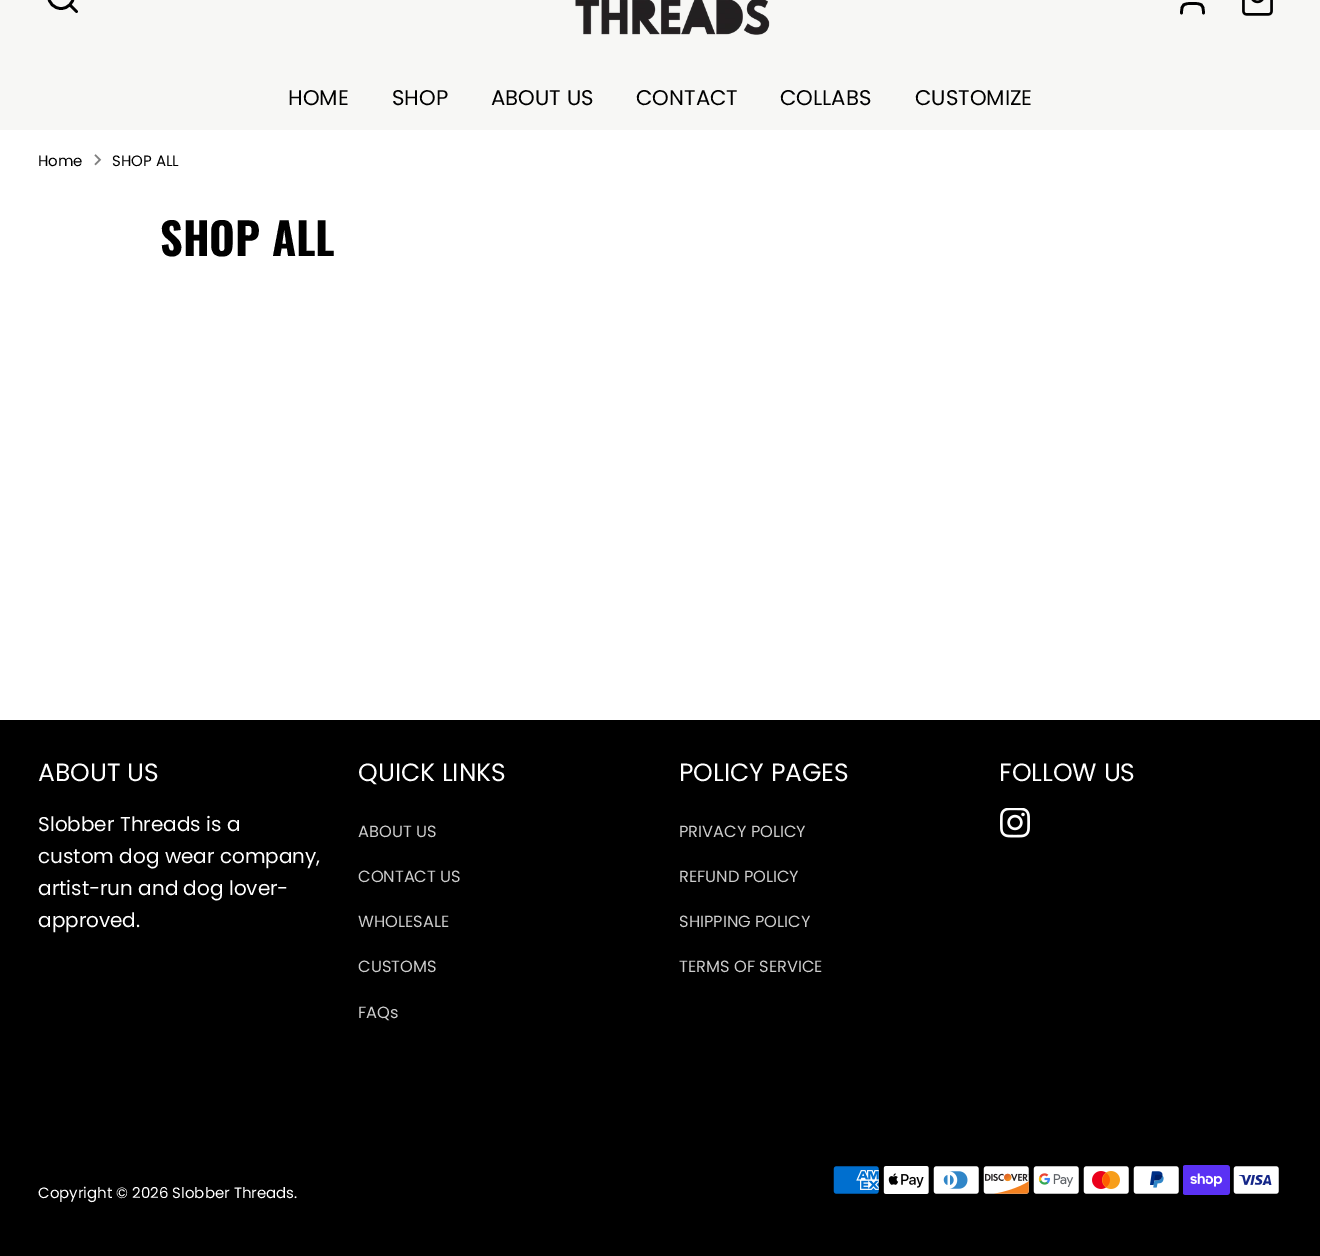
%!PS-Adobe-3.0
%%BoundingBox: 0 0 1320 1256
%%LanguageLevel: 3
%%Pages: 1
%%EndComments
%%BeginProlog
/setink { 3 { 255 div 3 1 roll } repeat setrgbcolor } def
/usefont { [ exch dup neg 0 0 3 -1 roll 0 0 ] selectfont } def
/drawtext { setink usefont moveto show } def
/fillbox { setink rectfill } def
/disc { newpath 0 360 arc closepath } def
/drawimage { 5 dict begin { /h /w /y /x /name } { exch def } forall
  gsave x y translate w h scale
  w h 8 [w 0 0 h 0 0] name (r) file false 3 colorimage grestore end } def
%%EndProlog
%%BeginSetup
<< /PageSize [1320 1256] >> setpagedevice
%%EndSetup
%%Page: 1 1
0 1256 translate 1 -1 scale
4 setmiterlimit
0 0 1320 1256 255 255 255 fillbox
0 0 1320 130 247 247 245 fillbox
0 0 0 setink
2.7 setlinewidth
61 -4 12.5 disc stroke
1 setlinecap
1 setlinejoin
76.5 11.5 moveto 70 5 lineto stroke
(assets/img1.rgb) 575 0 195 35 drawimage
1203.5 13 moveto 1203.5 3.5 1201 3.5 1192.5 3.5 curveto 1184 3.5 1181.5 3.5 1181.5 13 curveto stroke
(assets/img2.rgb) 1242 0 31 16 drawimage
(HOME) 288 105 /Poppins-Regular 21.25 0 0 0 drawtext
(SHOP) 392 105 /Poppins-Regular 21.25 0 0 0 drawtext
(ABOUT US) 491 105 /Poppins-Regular 21.25 0 0 0 drawtext
(CONTACT) 636 105 /Poppins-Regular 21.25 0 0 0 drawtext
(COLLABS) 780 105 /Poppins-Regular 21.25 0 0 0 drawtext
(CUSTOMIZE) 915 105 /Poppins-Regular 21.25 0 0 0 drawtext
(Home) 38 166 /Poppins-Regular 15 0 0 0 drawtext
(assets/img3.rgb) 94 154 8 12 drawimage
(SHOP ALL) 112 166 /Poppins-Regular 15 0 0 0 drawtext
(SHOP ALL) 160 256 /Oswald-Bold 44 0 0 0 drawtext
0 720 1320 536 0 0 0 fillbox
(ABOUT US) 38 781 /Poppins-Regular 25 255 255 255 drawtext
(Slobber Threads is a) 38 831 /Poppins-Regular 20 255 255 255 drawtext
(custom dog wear company,) 38 863 /Poppins-Regular 20 255 255 255 drawtext
(artist-run and dog lover-) 38 895 /Poppins-Regular 20 255 255 255 drawtext
(approved.) 38 927 /Poppins-Regular 20 255 255 255 drawtext
(QUICK LINKS) 358 781 /Poppins-Regular 25 255 255 255 drawtext
(ABOUT US) 358 837 /Poppins-Regular 16.25 204 204 204 drawtext
(CONTACT US) 358 882 /Poppins-Regular 16.25 204 204 204 drawtext
(WHOLESALE) 358 927 /Poppins-Regular 16.25 204 204 204 drawtext
(CUSTOMS) 358 972 /Poppins-Regular 16.25 204 204 204 drawtext
(FAQs) 358 1018 /Poppins-Regular 16.25 204 204 204 drawtext
(POLICY PAGES) 679 781 /Poppins-Regular 25 255 255 255 drawtext
(PRIVACY POLICY) 679 837 /Poppins-Regular 16.25 204 204 204 drawtext
(REFUND POLICY) 679 882 /Poppins-Regular 16.25 204 204 204 drawtext
(SHIPPING POLICY) 679 927 /Poppins-Regular 16.25 204 204 204 drawtext
(TERMS OF SERVICE) 679 972 /Poppins-Regular 16.25 204 204 204 drawtext
(FOLLOW US) 999 781 /Poppins-Regular 25 255 255 255 drawtext
(assets/img4.rgb) 1000 808 30 30 drawimage
(Copyright © 2026 Slobber Threads.) 38 1198 /Poppins-Regular 15 255 255 255 drawtext
(assets/img5.rgb) 833 1166 46 28 drawimage
(assets/img6.rgb) 883 1166 46 28 drawimage
(assets/img7.rgb) 933 1166 46 28 drawimage
(assets/img8.rgb) 983 1166 46 28 drawimage
(assets/img9.rgb) 1033 1166 46 28 drawimage
(assets/img10.rgb) 1083 1166 46 28 drawimage
(assets/img11.rgb) 1133 1166 46 28 drawimage
(assets/img12.rgb) 1183 1165 47 30 drawimage
(assets/img13.rgb) 1233 1166 46 28 drawimage
showpage
%%EOF
